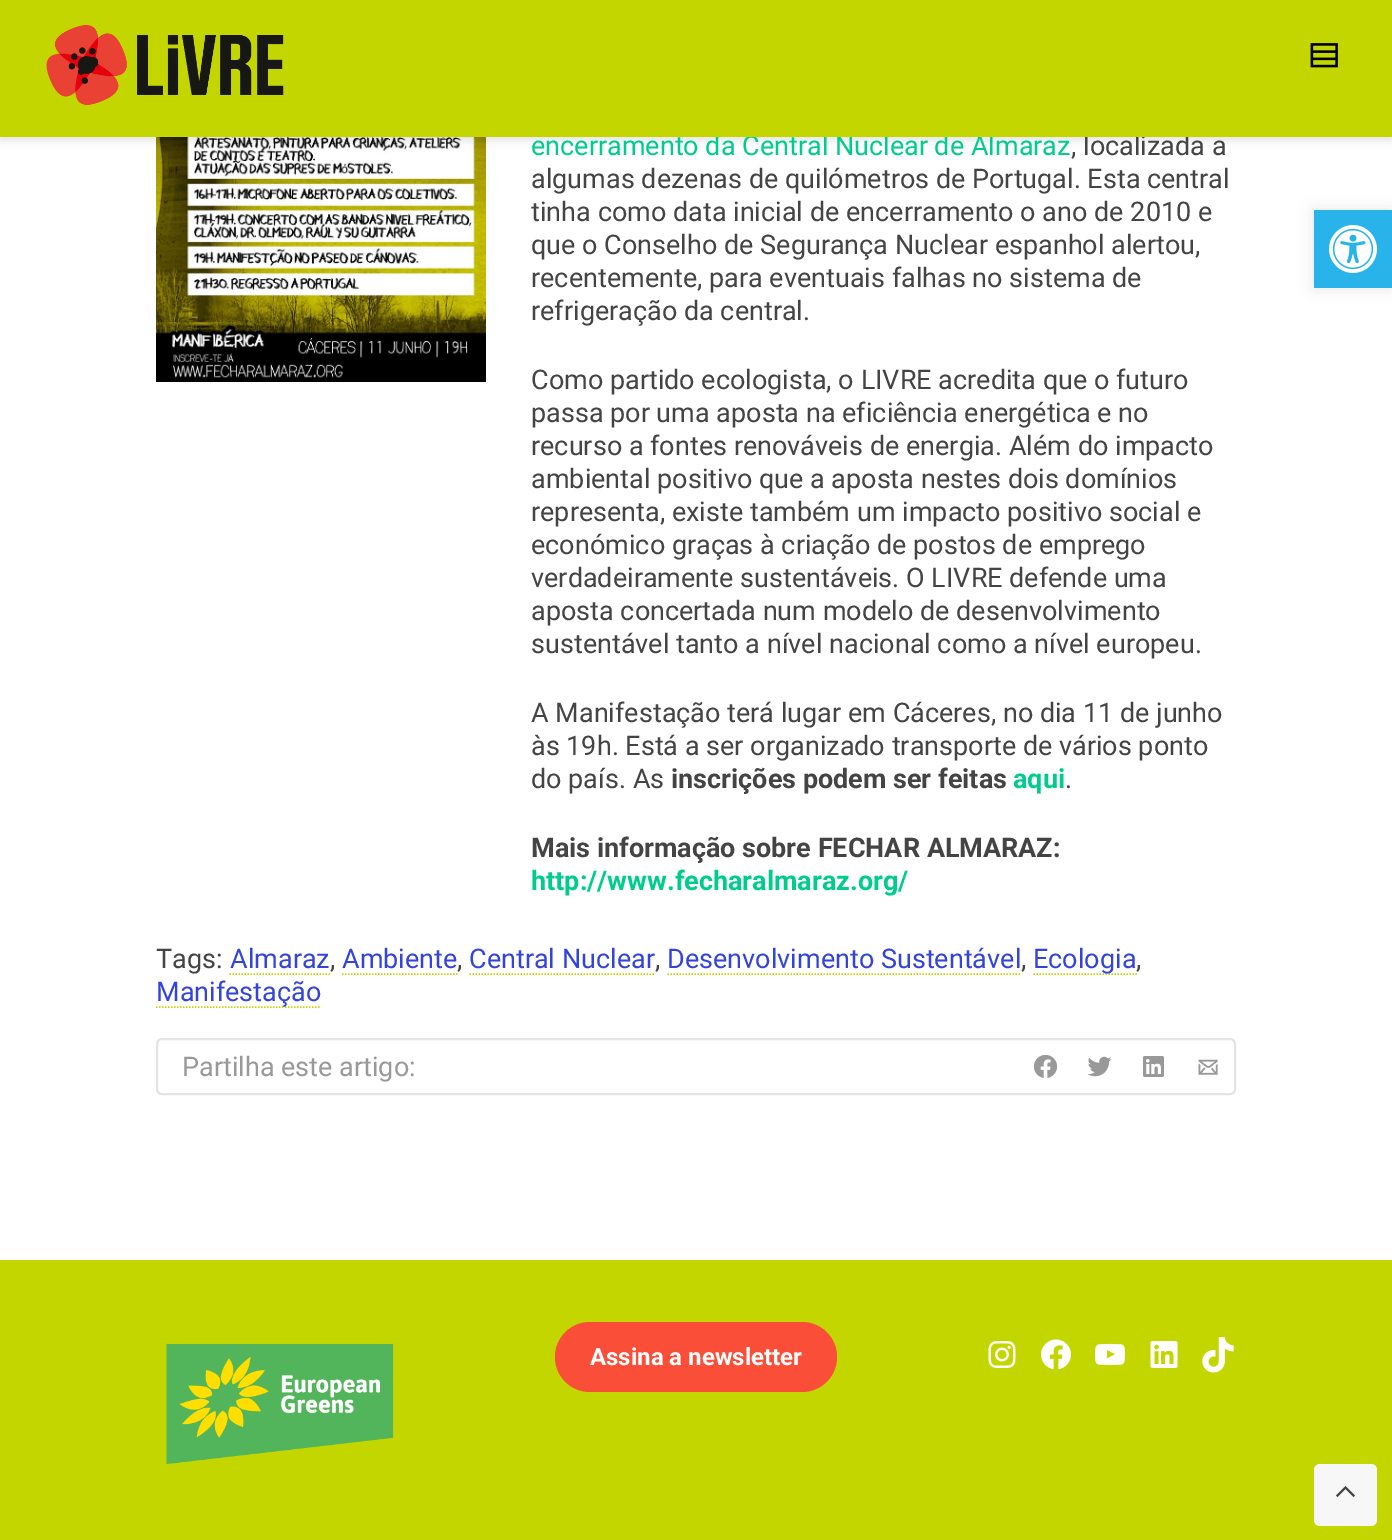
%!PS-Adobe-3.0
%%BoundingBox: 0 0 1392 1540
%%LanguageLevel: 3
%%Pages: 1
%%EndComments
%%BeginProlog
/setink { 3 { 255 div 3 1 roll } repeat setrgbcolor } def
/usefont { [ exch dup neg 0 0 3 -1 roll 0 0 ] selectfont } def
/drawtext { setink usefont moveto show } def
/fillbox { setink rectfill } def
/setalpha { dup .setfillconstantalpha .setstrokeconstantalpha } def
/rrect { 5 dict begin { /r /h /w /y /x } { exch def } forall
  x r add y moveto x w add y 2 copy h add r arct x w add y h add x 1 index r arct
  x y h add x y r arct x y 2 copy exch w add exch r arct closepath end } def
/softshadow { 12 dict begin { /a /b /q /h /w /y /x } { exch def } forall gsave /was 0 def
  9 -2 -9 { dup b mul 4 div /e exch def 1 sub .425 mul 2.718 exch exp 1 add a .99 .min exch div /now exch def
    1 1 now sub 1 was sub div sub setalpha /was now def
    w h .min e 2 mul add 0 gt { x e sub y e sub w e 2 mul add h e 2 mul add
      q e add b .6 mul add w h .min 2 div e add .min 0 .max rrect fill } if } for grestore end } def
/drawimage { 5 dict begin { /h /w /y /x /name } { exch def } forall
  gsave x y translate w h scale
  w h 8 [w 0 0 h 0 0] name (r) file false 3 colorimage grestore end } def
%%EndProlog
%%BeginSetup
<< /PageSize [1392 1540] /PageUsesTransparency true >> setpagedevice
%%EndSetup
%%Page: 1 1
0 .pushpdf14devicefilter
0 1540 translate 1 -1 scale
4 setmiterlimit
0 0 1392 1540 255 255 255 fillbox
(assets/img3.rgb) 156 137 330 245 drawimage
0 0 0 setink
0 5 1392 136 0 4 0.1 softshadow
(encerramento da Central Nuclear de Almaraz) 531 155 /Roboto-Regular 27 0 205 140 drawtext
(, localizada a) 1071 155 /Roboto-Regular 27 68 68 68 drawtext
0 0 1392 137 196 214 0 fillbox
(assets/img1.rgb) 46 24 238 81 drawimage
(assets/img2.rgb) 1310 43 28 25 drawimage
(algumas dezenas de quilómetros de Portugal. Esta central) 531 188 /Roboto-Regular 27 68 68 68 drawtext
(tinha como data inicial de encerramento o ano de 2010 e) 531 221 /Roboto-Regular 27 68 68 68 drawtext
(que o Conselho de Segurança Nuclear espanhol alertou,) 531 254 /Roboto-Regular 27 68 68 68 drawtext
(recentemente, para eventuais falhas no sistema de) 531 287 /Roboto-Regular 27 68 68 68 drawtext
(refrigeração da central.) 531 320 /Roboto-Regular 27 68 68 68 drawtext
(Como partido ecologista, o LIVRE acredita que o futuro) 531 389 /Roboto-Regular 27 68 68 68 drawtext
(passa por uma aposta na eficiência energética e no) 531 422 /Roboto-Regular 27 68 68 68 drawtext
(recurso a fontes renováveis de energia. Além do impacto) 531 455 /Roboto-Regular 27 68 68 68 drawtext
(ambiental positivo que a aposta nestes dois domínios) 531 488 /Roboto-Regular 27 68 68 68 drawtext
(representa, existe também um impacto positivo social e) 531 521 /Roboto-Regular 27 68 68 68 drawtext
(económico graças à criação de postos de emprego) 531 554 /Roboto-Regular 27 68 68 68 drawtext
(verdadeiramente sustentáveis. O LIVRE defende uma) 531 587 /Roboto-Regular 27 68 68 68 drawtext
(aposta concertada num modelo de desenvolvimento) 531 620 /Roboto-Regular 27 68 68 68 drawtext
(sustentável tanto a nível nacional como a nível europeu.) 531 653 /Roboto-Regular 27 68 68 68 drawtext
(A Manifestação terá lugar em Cáceres, no dia 11 de junho) 531 722 /Roboto-Regular 27 68 68 68 drawtext
(às 19h. Está a ser organizado transporte de vários ponto) 531 755 /Roboto-Regular 27 68 68 68 drawtext
(do país. As) 531 788 /Roboto-Regular 27 68 68 68 drawtext
(inscrições podem ser feitas) 671 788 /Roboto-Bold 27 68 68 68 drawtext
(aqui) 1013 788 /Roboto-Bold 27 0 205 140 drawtext
(.) 1065 788 /Roboto-Regular 27 68 68 68 drawtext
(Mais informação sobre FECHAR ALMARAZ:) 531 857 /Roboto-Bold 27 68 68 68 drawtext
(http://www.fecharalmaraz.org/) 531 890 /Roboto-Bold 27 0 205 140 drawtext
(Tags:) 156 968 /Roboto-Regular 27 68 68 68 drawtext
(Almaraz) 230 968 /Roboto-Regular 27 51 68 221 drawtext
(,) 330 968 /Roboto-Regular 27 68 68 68 drawtext
196 214 0 setink
1.5 setlinewidth
[1.5 1.5] 0 setdash
229.5 974 moveto 330 974 lineto stroke
(Ambiente) 342 968 /Roboto-Regular 27 51 68 221 drawtext
(,) 457 968 /Roboto-Regular 27 68 68 68 drawtext
196 214 0 setink
342 974 moveto 457.5 974 lineto stroke
(Central Nuclear) 469 968 /Roboto-Regular 27 51 68 221 drawtext
(,) 655 968 /Roboto-Regular 27 68 68 68 drawtext
196 214 0 setink
469.5 974 moveto 655.5 974 lineto stroke
(Desenvolvimento Sustentável) 667 968 /Roboto-Regular 27 51 68 221 drawtext
(,) 1021 968 /Roboto-Regular 27 68 68 68 drawtext
196 214 0 setink
667.5 974 moveto 1021.5 974 lineto stroke
1033.5 974 moveto 1137 974 lineto stroke
(Ecologia) 1033 968 /Roboto-Regular 27 51 68 221 drawtext
(,) 1136 968 /Roboto-Regular 27 68 68 68 drawtext
196 214 0 setink
156 1007 moveto 321 1007 lineto stroke
(Manifestação) 156 1001 /Roboto-Regular 27 51 68 221 drawtext
228 228 228 setink
2 setlinewidth
[] 0 setdash
157 1039 1078 55 5 rrect stroke
(Partilha este artigo:) 182 1076 /Roboto-Regular 27 153 153 153 drawtext
(assets/img4.rgb) 1033 1054 25 24 drawimage
(assets/img5.rgb) 1087 1056 25 21 drawimage
(assets/img6.rgb) 1143 1056 21 21 drawimage
(assets/img7.rgb) 1198 1059 20 16 drawimage
0 1260 1392 280 196 214 0 fillbox
(assets/img8.rgb) 166 1344 228 120 drawimage
250 78 56 setink
555 1322 282 70 35 rrect fill
(Assina a newsletter) 590 1365 /Roboto-Bold 24 255 255 255 drawtext
(assets/img9.rgb) 988 1341 28 27 drawimage
(assets/img10.rgb) 1041 1339 30 31 drawimage
(assets/img11.rgb) 1095 1343 30 23 drawimage
(assets/img12.rgb) 1150 1341 28 27 drawimage
(assets/img13.rgb) 1202 1337 32 36 drawimage
0 0 0 setink
1314 210 78 78 0 7.5 0.1 softshadow
1314 210 78 78 40 180 235 fillbox
(assets/img14.rgb) 1329 225 48 48 drawimage
247 247 247 setink
1314 1464 63 62 6 rrect fill
68 68 68 setink
1353.5 1497 moveto 1345.5 1489 lineto 1337.5 1497 lineto 1336 1495.5 lineto 1345.5 1486 lineto 1355 1495.5 lineto closepath fill
.poppdf14devicefilter showpage
%%EOF
